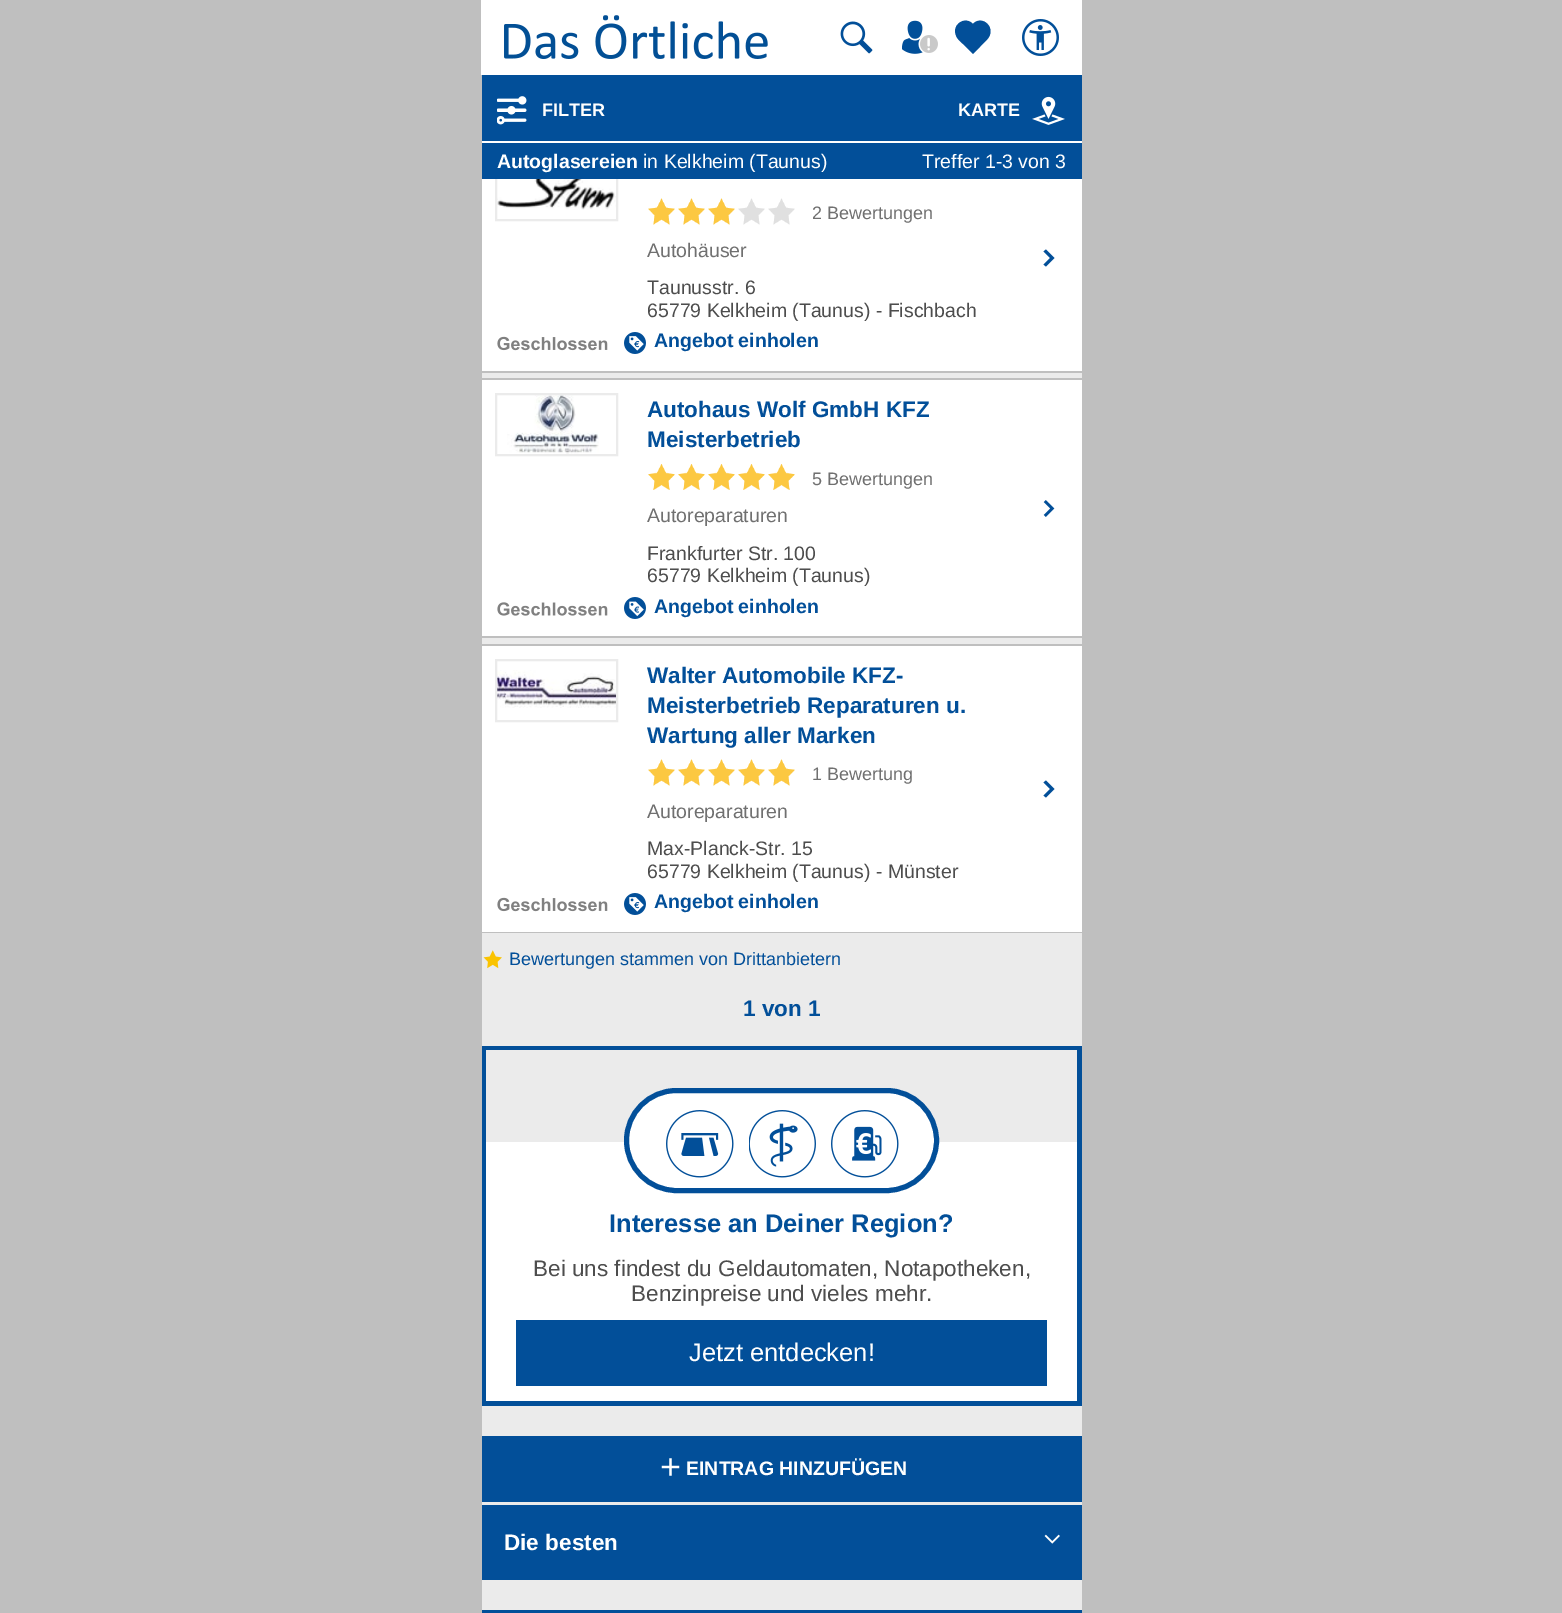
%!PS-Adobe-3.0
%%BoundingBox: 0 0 1562 1613
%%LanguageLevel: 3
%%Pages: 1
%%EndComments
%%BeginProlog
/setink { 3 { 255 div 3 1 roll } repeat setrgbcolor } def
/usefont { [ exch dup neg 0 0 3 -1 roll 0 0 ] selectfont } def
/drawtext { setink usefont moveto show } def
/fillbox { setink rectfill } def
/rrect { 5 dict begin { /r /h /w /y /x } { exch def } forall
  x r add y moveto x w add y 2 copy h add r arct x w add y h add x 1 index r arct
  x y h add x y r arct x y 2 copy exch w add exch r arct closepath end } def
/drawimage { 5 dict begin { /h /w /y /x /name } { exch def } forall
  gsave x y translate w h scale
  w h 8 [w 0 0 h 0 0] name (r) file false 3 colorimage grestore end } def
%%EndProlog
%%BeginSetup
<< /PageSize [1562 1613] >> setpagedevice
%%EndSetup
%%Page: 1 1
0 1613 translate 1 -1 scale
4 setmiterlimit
0 0 1562 1613 191 191 191 fillbox
481 0 601 75 255 255 255 fillbox
(assets/img1.rgb) 504 15 264 44 drawimage
(assets/img2.rgb) 840 21 33 33 drawimage
(assets/img3.rgb) 902 20 36 34 drawimage
2 79 153 setink
987.5 24 moveto 983.5 19.5 976.5 19.5 973 24 curveto 965 15.5 951.5 24.5 956 35.5 curveto 957 39 960.5 41.5 963 44 curveto 973 54 lineto 987.5 39 lineto 991.5 34.5 991.5 28 987.5 24 curveto closepath fill
(assets/img4.rgb) 1022 19 37 37 drawimage
482 1046 600 567 2 79 153 fillbox
482 75 600 66 2 79 153 fillbox
(assets/img5.rgb) 497 96 30 29 drawimage
(FILTER) 542 116 /LiberationSans-Bold 18 255 255 255 drawtext
(KARTE) 958 116 /LiberationSans-Bold 18 255 255 255 drawtext
(assets/img6.rgb) 1032 96 33 29 drawimage
482 179 600 192 255 255 255 fillbox
(assets/img7.rgb) 497 179 119 31 drawimage
235 235 235 setink
2 setlinewidth
496 159 121 61 rectstroke
482 143 600 36 2 79 153 fillbox
482 141 600 2 255 255 255 fillbox
(Autoglasereien) 497 168 /LiberationSans-Bold 19.5 255 255 255 drawtext
(in Kelkheim \(Taunus\)) 643 168 /LiberationSans-Regular 19.5 255 255 255 drawtext
(Treffer 1-3 von 3) 922 168 /LiberationSans-Regular 19.5 255 255 255 drawtext
482 373 600 271 235 235 235 fillbox
2 79 153 setink
1046 266.5 moveto 1043.5 264.5 lineto 1050 258 lineto 1043.5 251.5 lineto 1046 249.5 lineto 1054.5 258 lineto closepath fill
(assets/img8.rgb) 648 198 27 27 drawimage
(assets/img8.rgb) 678 198 27 27 drawimage
(assets/img8.rgb) 708 198 27 27 drawimage
(assets/img9.rgb) 738 198 27 27 drawimage
(assets/img9.rgb) 768 198 27 27 drawimage
(2 Bewertungen) 812 219 /LiberationSans-Regular 18 112 112 112 drawtext
(Autohäuser) 647 257 /LiberationSans-Regular 19.5 112 112 112 drawtext
(Taunusstr. 6) 647 294 /LiberationSans-Regular 19.5 77 77 77 drawtext
(65779 Kelkheim \(Taunus\) - Fischbach) 647 317 /LiberationSans-Regular 19.5 77 77 77 drawtext
(assets/img10.rgb) 497 336 111 15 drawimage
(assets/img11.rgb) 624 332 22 22 drawimage
(Angebot einholen) 654 347 /LiberationSans-Bold 19.5 2 79 153 drawtext
482 380 600 256 255 255 255 fillbox
(assets/img12.rgb) 1043 500 12 17 drawimage
482 378 600 2 191 191 191 fillbox
482 636 600 2 191 191 191 fillbox
(assets/img13.rgb) 507 395 92 59 drawimage
235 235 235 setink
496 394 121 61 rectstroke
(Autohaus Wolf GmbH KFZ) 647 417 /LiberationSans-Bold 22.5 2 79 153 drawtext
(Meisterbetrieb) 647 447 /LiberationSans-Bold 22.5 2 79 153 drawtext
(assets/img14.rgb) 648 464 27 26 drawimage
(assets/img14.rgb) 678 464 27 26 drawimage
(assets/img14.rgb) 708 464 27 26 drawimage
(assets/img14.rgb) 738 464 27 26 drawimage
(assets/img14.rgb) 768 464 27 26 drawimage
(5 Bewertungen) 812 485 /LiberationSans-Regular 18 112 112 112 drawtext
(Autoreparaturen) 647 522 /LiberationSans-Regular 19.5 112 112 112 drawtext
(Frankfurter Str. 100) 647 560 /LiberationSans-Regular 19.5 77 77 77 drawtext
(65779 Kelkheim \(Taunus\)) 647 582 /LiberationSans-Regular 19.5 77 77 77 drawtext
(assets/img15.rgb) 497 602 111 14 drawimage
(assets/img16.rgb) 624 597 22 22 drawimage
(Angebot einholen) 654 613 /LiberationSans-Bold 19.5 2 79 153 drawtext
482 646 600 286 255 255 255 fillbox
2 79 153 setink
1046 797.5 moveto 1043.5 795.5 lineto 1050 789 lineto 1043.5 782.5 lineto 1046 780.5 lineto 1054.5 789 lineto closepath fill
(assets/img17.rgb) 497 670 119 38 drawimage
235 235 235 setink
496 660 121 61 rectstroke
(Walter Automobile KFZ-) 647 683 /LiberationSans-Bold 22.5 2 79 153 drawtext
(Meisterbetrieb Reparaturen u.) 647 713 /LiberationSans-Bold 22.5 2 79 153 drawtext
(Wartung aller Marken) 647 743 /LiberationSans-Bold 22.5 2 79 153 drawtext
(assets/img8.rgb) 648 759 27 27 drawimage
(assets/img8.rgb) 678 759 27 27 drawimage
(assets/img8.rgb) 708 759 27 27 drawimage
(assets/img8.rgb) 738 759 27 27 drawimage
(assets/img8.rgb) 768 759 27 27 drawimage
(1 Bewertung) 812 780 /LiberationSans-Regular 18 112 112 112 drawtext
(Autoreparaturen) 647 818 /LiberationSans-Regular 19.5 112 112 112 drawtext
(Max-Planck-Str. 15) 647 855 /LiberationSans-Regular 19.5 77 77 77 drawtext
(65779 Kelkheim \(Taunus\) - Münster) 647 878 /LiberationSans-Regular 19.5 77 77 77 drawtext
(assets/img10.rgb) 497 897 111 15 drawimage
(assets/img11.rgb) 624 893 22 22 drawimage
(Angebot einholen) 654 908 /LiberationSans-Bold 19.5 2 79 153 drawtext
482 933 600 113 235 235 235 fillbox
(assets/img18.rgb) 483 950 19 19 drawimage
(Bewertungen stammen von Drittanbietern) 509 965 /LiberationSans-Regular 18 2 79 153 drawtext
(1 von 1) 743 1016 /LiberationSans-Bold 22.5 2 79 153 drawtext
486 1050 591 92 235 235 235 fillbox
486 1142 591 259 255 255 255 fillbox
626.5 1090.5 310 100 50 rrect gsave fill grestore
2 79 153 setink
5 setlinewidth
stroke
(assets/img19.rgb) 666 1110 68 68 drawimage
(assets/img20.rgb) 749 1110 67 68 drawimage
(assets/img21.rgb) 831 1110 68 68 drawimage
(Interesse an Deiner Region?) 609 1232 /LiberationSans-Bold 25.5 2 79 153 drawtext
(Bei uns findest du Geldautomaten, Notapotheken,) 533 1276 /LiberationSans-Regular 22.5 77 77 77 drawtext
(Benzinpreise und vieles mehr.) 631 1301 /LiberationSans-Regular 22.5 77 77 77 drawtext
516 1320 531 66 2 79 153 fillbox
(Jetzt entdecken!) 689 1361 /LiberationSans-Regular 25.5 255 255 255 drawtext
482 1406 600 30 235 235 235 fillbox
(assets/img22.rgb) 661 1458 19 18 drawimage
(EINTRAG HINZUFÜGEN) 686 1475 /LiberationSans-Bold 19.5 255 255 255 drawtext
482 1502 600 3 235 235 235 fillbox
(assets/img23.rgb) 1044 1534 16 10 drawimage
(Die besten) 504 1550 /LiberationSans-Bold 22.5 255 255 255 drawtext
482 1580 600 30 235 235 235 fillbox
showpage
%%EOF
